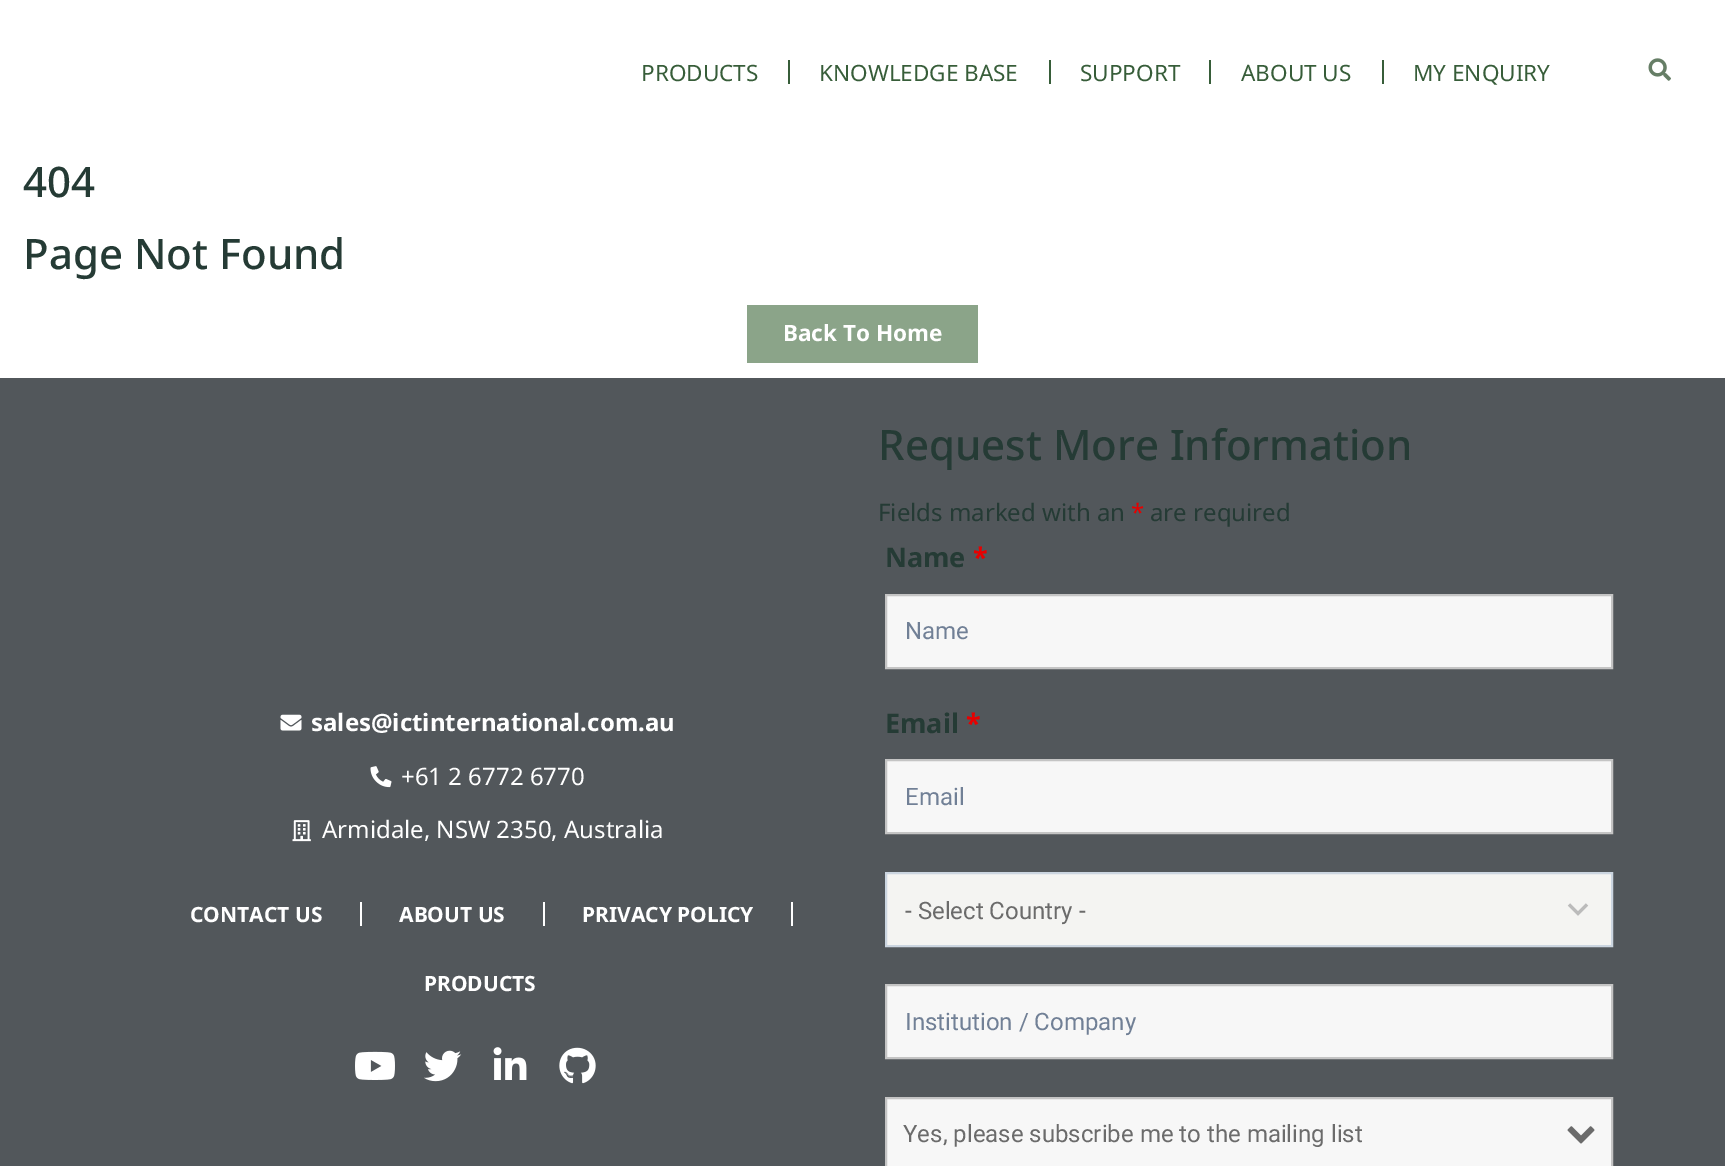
%!PS-Adobe-3.0
%%BoundingBox: 0 0 1725 1166
%%LanguageLevel: 3
%%Pages: 1
%%EndComments
%%BeginProlog
/setink { 3 { 255 div 3 1 roll } repeat setrgbcolor } def
/usefont { [ exch dup neg 0 0 3 -1 roll 0 0 ] selectfont } def
/drawtext { setink usefont moveto show } def
/fillbox { setink rectfill } def
/drawimage { 5 dict begin { /h /w /y /x /name } { exch def } forall
  gsave x y translate w h scale
  w h 8 [w 0 0 h 0 0] name (r) file false 3 colorimage grestore end } def
%%EndProlog
%%BeginSetup
<< /PageSize [1725 1166] >> setpagedevice
%%EndSetup
%%Page: 1 1
0 1166 translate 1 -1 scale
4 setmiterlimit
0 0 1725 1166 255 255 255 fillbox
(PRODUCTS) 641 81 /NotoSans-Regular 22.5 55 93 57 drawtext
788 60 2 24 55 93 57 fillbox
(KNOWLEDGE BASE) 819 81 /NotoSans-Regular 22.5 55 93 57 drawtext
1049 60 2 24 55 93 57 fillbox
(SUPPORT) 1080 81 /NotoSans-Regular 22.5 55 93 57 drawtext
1209 60 2 24 55 93 57 fillbox
(ABOUT US) 1241 81 /NotoSans-Regular 22.5 55 93 57 drawtext
1382 60 2 24 55 93 57 fillbox
(MY ENQUIRY) 1413 81 /NotoSans-Regular 22.5 55 93 57 drawtext
(assets/img1.rgb) 1648 58 23 23 drawimage
(404) 23 197 /NotoSans-Medium 42 37 59 53 drawtext
(Page Not Found) 23 269 /NotoSans-Medium 42 37 59 53 drawtext
747 305 231 58 139 164 137 fillbox
(Back To Home) 783 341 /NotoSans-Bold 22.5 255 255 255 drawtext
0 378 1725 788 82 87 91 fillbox
(assets/img2.rgb) 280 714 22 17 drawimage
(sales@ictinternational.com.au) 311 731 /NotoSans-Bold 24 255 255 255 drawtext
(assets/img3.rgb) 370 766 22 22 drawimage
(+61 2 6772 6770) 401 785 /NotoSans-Regular 24 255 255 255 drawtext
(assets/img4.rgb) 292 820 19 22 drawimage
(Armidale, NSW 2350, Australia) 322 838 /NotoSans-Regular 24 255 255 255 drawtext
(CONTACT US) 190 922 /NotoSans-Bold 21 255 255 255 drawtext
360 902 2 24 255 255 255 fillbox
(ABOUT US) 399 922 /NotoSans-Bold 21 255 255 255 drawtext
543 902 2 24 255 255 255 fillbox
(PRIVACY POLICY) 582 922 /NotoSans-Bold 21 255 255 255 drawtext
791 902 2 24 255 255 255 fillbox
(PRODUCTS) 424 991 /NotoSans-Bold 21 255 255 255 drawtext
(assets/img5.rgb) 355 1051 40 29 drawimage
(assets/img6.rgb) 424 1050 38 32 drawimage
(assets/img7.rgb) 493 1047 34 33 drawimage
(assets/img8.rgb) 559 1047 37 37 drawimage
(Request More Information) 878 460 /NotoSans-Medium 42 37 59 53 drawtext
(Fields marked with an) 878 521 /NotoSans-Regular 24 37 59 53 drawtext
(*) 1131 521 /NotoSans-Regular 24 232 0 0 drawtext
(are required) 1150 521 /NotoSans-Regular 24 37 59 53 drawtext
(Name) 885 567 /NotoSans-Bold 27 37 59 53 drawtext
(*) 973 567 /NotoSans-Bold 27 232 0 0 drawtext
247 247 247 setink
886 595 moveto 1612 595 lineto 1612 668 lineto 886 668 lineto closepath gsave fill grestore
196 196 196 setink
2 setlinewidth
stroke
(Name) 905 639 /Roboto-Regular 24 113 128 150 drawtext
(Email) 885 733 /NotoSans-Bold 27 37 59 53 drawtext
(*) 966 733 /NotoSans-Bold 27 232 0 0 drawtext
247 247 247 setink
886 760 moveto 1612 760 lineto 1612 833 lineto 886 833 lineto closepath gsave fill grestore
196 196 196 setink
stroke
(Email) 905 805 /Roboto-Regular 24 113 128 150 drawtext
887 874 724 71 244 244 242 fillbox
187 187 187 setink
3 setlinewidth
1569 904.5 moveto 1578 913.5 lineto 1587 904.5 lineto stroke
203 213 224 setink
2 setlinewidth
886 873 726 73 rectstroke
(- Select Country -) 905 919 /Roboto-Regular 24 107 107 107 drawtext
247 247 247 setink
886 985 moveto 1612 985 lineto 1612 1058 lineto 886 1058 lineto closepath gsave fill grestore
196 196 196 setink
stroke
(Institution / Company) 905 1030 /Roboto-Regular 24 113 128 150 drawtext
247 247 247 setink
886 1098 moveto 1612 1098 lineto 1612 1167 lineto 886 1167 lineto closepath gsave fill grestore
196 196 196 setink
stroke
(assets/img9.rgb) 1567 1126 28 18 drawimage
(Yes, please subscribe me to the mailing list) 903 1142 /Roboto-Regular 24 107 107 107 drawtext
showpage
%%EOF
